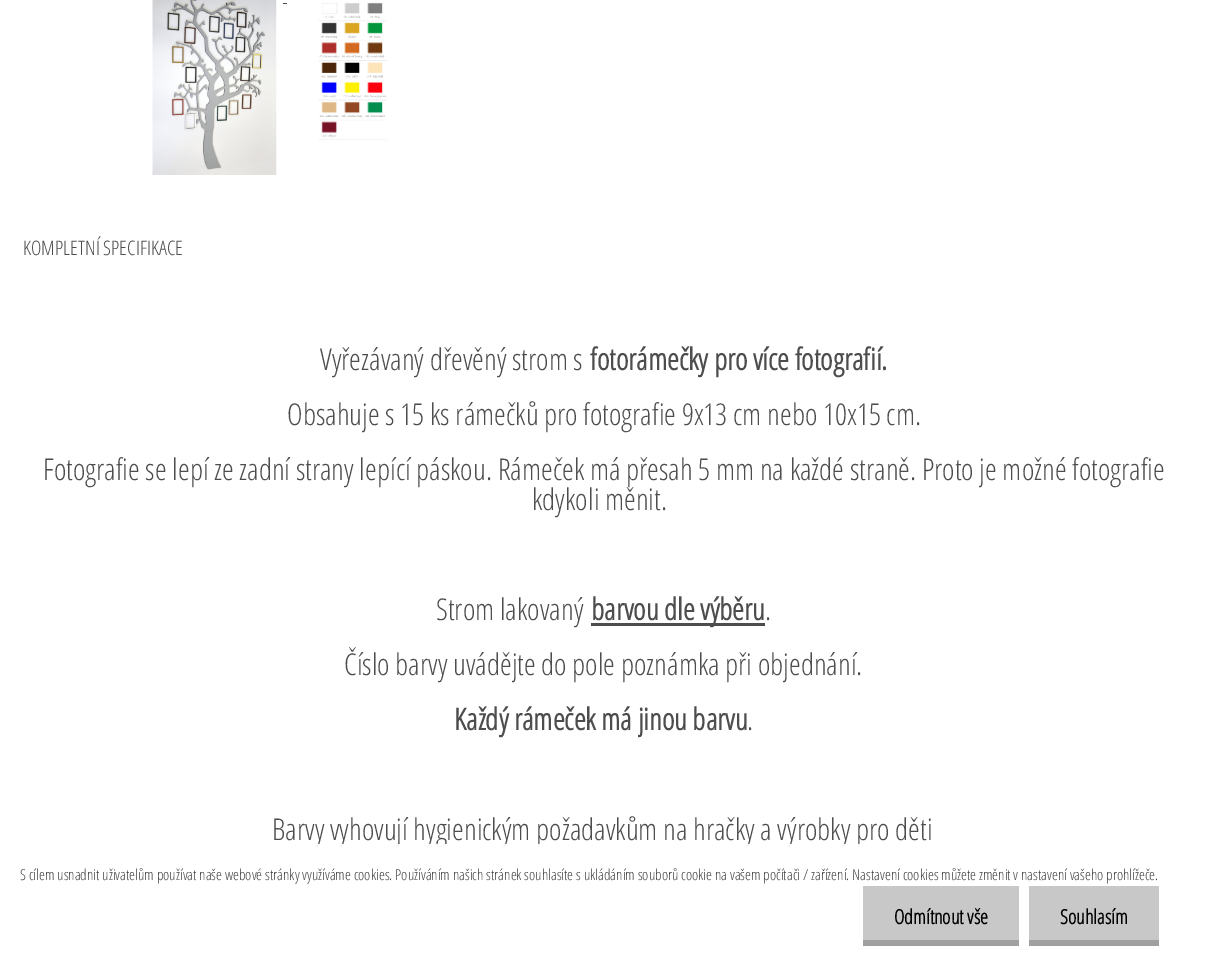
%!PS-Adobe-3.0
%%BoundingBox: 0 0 1207 966
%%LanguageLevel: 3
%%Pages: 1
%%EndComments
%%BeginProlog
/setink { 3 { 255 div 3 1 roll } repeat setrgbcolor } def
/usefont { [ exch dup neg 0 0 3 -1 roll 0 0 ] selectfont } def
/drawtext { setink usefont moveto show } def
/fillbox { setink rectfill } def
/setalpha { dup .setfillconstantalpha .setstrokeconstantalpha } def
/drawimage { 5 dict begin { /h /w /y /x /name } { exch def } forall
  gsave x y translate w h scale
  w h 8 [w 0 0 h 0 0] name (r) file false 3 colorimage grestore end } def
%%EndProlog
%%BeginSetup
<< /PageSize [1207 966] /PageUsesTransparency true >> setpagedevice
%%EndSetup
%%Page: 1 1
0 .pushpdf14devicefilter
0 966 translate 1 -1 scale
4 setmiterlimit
0 0 1207 966 255 255 255 fillbox
(assets/img1.rgb) 152 0 125 175 drawimage
283 3 4 1 77 77 77 fillbox
(assets/img2.rgb) 318 2 69 138 drawimage
(KOMPLETNÍ SPECIFIKACE) 23 255 /OpenSansCondensed-Light 20 77 77 77 drawtext
(Vyřezávaný dřevěný strom s) 320 370 /OpenSansCondensed-Light 30 77 77 77 drawtext
(fotorámečky pro více fotografií.) 590 370 /OpenSansCondensed-Bold 30 77 77 77 drawtext
(Obsahuje s 15 ks rámečků pro fotografie 9x13 cm nebo 10x15 cm.) 287 425 /OpenSansCondensed-Light 30 77 77 77 drawtext
(Fotografie se lepí ze zadní strany lepící páskou. Rámeček má přesah 5 mm na každé straně. Proto je možné fotografie) 43 480 /OpenSansCondensed-Light 30 77 77 77 drawtext
(kdykoli měnit.) 532 510 /OpenSansCondensed-Light 30 77 77 77 drawtext
(Strom lakovaný) 436 620 /OpenSansCondensed-Light 30 77 77 77 drawtext
591 623 174 3 77 77 77 fillbox
(barvou dle výběru) 591 620 /OpenSansCondensed-Bold 30 77 77 77 drawtext
(.) 765 620 /OpenSansCondensed-Light 30 77 77 77 drawtext
(Číslo barvy uvádějte do pole poznámka při objednání.) 344 675 /OpenSansCondensed-Light 30 77 77 77 drawtext
(Každý rámeček má jinou barvu) 454 730 /OpenSansCondensed-Bold 30 77 77 77 drawtext
(.) 747 730 /OpenSansCondensed-Light 30 77 77 77 drawtext
(Barvy vyhovují hygienickým požadavkům na hračky a výrobky pro děti) 272 840 /OpenSansCondensed-Light 30 77 77 77 drawtext
0.95 setalpha
314 844 549 4 255 255 255 fillbox
1 setalpha
(S cílem usnadnit uživatelům používat naše webové stránky využíváme cookies. Používáním našich stránek souhlasíte s ukládáním souborů cookie na vašem počítači / zařízení. Nastavení cookies můžete změnit v nastavení vašeho prohlížeče.) 20 880 /OpenSansCondensed-Light 15 63 63 63 drawtext
863 886 156 54 200 200 200 fillbox
863 940 156 6 160 160 160 fillbox
(Odmítnout vše) 894 924 /OpenSansCondensed-Bold 20 0 0 0 drawtext
1029 886 130 54 200 200 200 fillbox
1029 940 130 6 160 160 160 fillbox
(Souhlasím) 1060 924 /OpenSansCondensed-Bold 20 0 0 0 drawtext
.poppdf14devicefilter showpage
%%EOF
